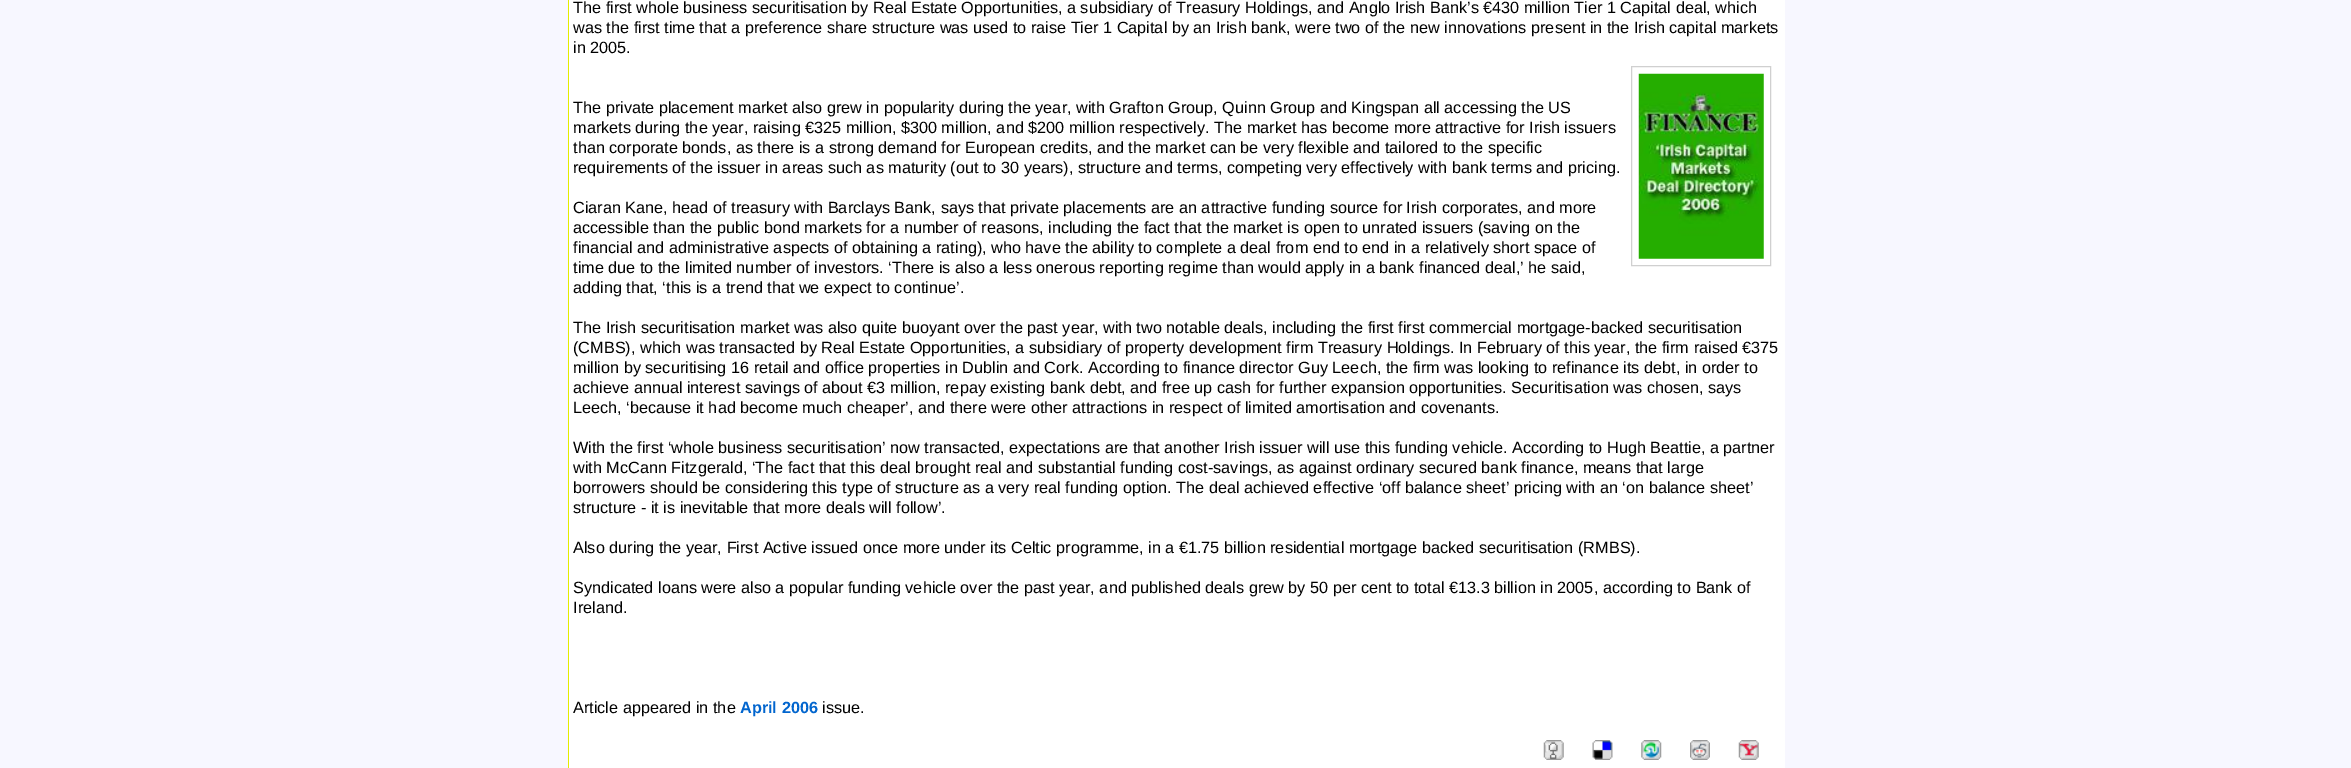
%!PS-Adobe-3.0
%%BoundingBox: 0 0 2351 768
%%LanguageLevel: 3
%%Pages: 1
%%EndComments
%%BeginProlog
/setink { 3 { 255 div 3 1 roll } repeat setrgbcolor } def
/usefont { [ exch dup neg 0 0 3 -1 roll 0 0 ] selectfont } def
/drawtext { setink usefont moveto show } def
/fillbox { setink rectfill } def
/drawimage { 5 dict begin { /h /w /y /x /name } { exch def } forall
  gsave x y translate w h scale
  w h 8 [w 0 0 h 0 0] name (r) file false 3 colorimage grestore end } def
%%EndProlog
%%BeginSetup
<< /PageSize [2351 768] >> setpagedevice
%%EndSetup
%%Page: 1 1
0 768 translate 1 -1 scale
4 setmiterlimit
0 0 2351 768 247 247 255 fillbox
569 0 1216 768 255 255 255 fillbox
568 0 1 768 228 236 0 fillbox
(The first whole business securitisation by Real Estate Opportunities, a subsidiary of Treasury Holdings, and Anglo Irish Bank’s €430 million Tier 1 Capital deal, which) 573 13 /LiberationSans-Regular 16.25 0 0 0 drawtext
(was the first time that a preference share structure was used to raise Tier 1 Capital by an Irish bank, were two of the new innovations present in the Irish capital markets) 573 33 /LiberationSans-Regular 16.25 0 0 0 drawtext
(in 2005.) 573 53 /LiberationSans-Regular 16.25 0 0 0 drawtext
(The private placement market also grew in popularity during the year, with Grafton Group, Quinn Group and Kingspan all accessing the US) 573 113 /LiberationSans-Regular 16.25 0 0 0 drawtext
208 208 208 setink
1631.5 66.5 139 199 rectstroke
(assets/img1.rgb) 1638 73 126 186 drawimage
(markets during the year, raising €325 million, $300 million, and $200 million respectively. The market has become more attractive for Irish issuers) 573 133 /LiberationSans-Regular 16.25 0 0 0 drawtext
(than corporate bonds, as there is a strong demand for European credits, and the market can be very flexible and tailored to the specific) 573 153 /LiberationSans-Regular 16.25 0 0 0 drawtext
(requirements of the issuer in areas such as maturity \(out to 30 years\), structure and terms, competing very effectively with bank terms and pricing.) 573 173 /LiberationSans-Regular 16.25 0 0 0 drawtext
(Ciaran Kane, head of treasury with Barclays Bank, says that private placements are an attractive funding source for Irish corporates, and more) 573 213 /LiberationSans-Regular 16.25 0 0 0 drawtext
(accessible than the public bond markets for a number of reasons, including the fact that the market is open to unrated issuers \(saving on the) 573 233 /LiberationSans-Regular 16.25 0 0 0 drawtext
(financial and administrative aspects of obtaining a rating\), who have the ability to complete a deal from end to end in a relatively short space of) 573 253 /LiberationSans-Regular 16.25 0 0 0 drawtext
(time due to the limited number of investors. ‘There is also a less onerous reporting regime than would apply in a bank financed deal,’ he said,) 573 273 /LiberationSans-Regular 16.25 0 0 0 drawtext
(adding that, ‘this is a trend that we expect to continue’.) 573 293 /LiberationSans-Regular 16.25 0 0 0 drawtext
(The Irish securitisation market was also quite buoyant over the past year, with two notable deals, including the first first commercial mortgage-backed securitisation) 573 333 /LiberationSans-Regular 16.25 0 0 0 drawtext
(\(CMBS\), which was transacted by Real Estate Opportunities, a subsidiary of property development firm Treasury Holdings. In February of this year, the firm raised €375) 573 353 /LiberationSans-Regular 16.25 0 0 0 drawtext
(million by securitising 16 retail and office properties in Dublin and Cork. According to finance director Guy Leech, the firm was looking to refinance its debt, in order to) 573 373 /LiberationSans-Regular 16.25 0 0 0 drawtext
(achieve annual interest savings of about €3 million, repay existing bank debt, and free up cash for further expansion opportunities. Securitisation was chosen, says) 573 393 /LiberationSans-Regular 16.25 0 0 0 drawtext
(Leech, ‘because it had become much cheaper’, and there were other attractions in respect of limited amortisation and covenants.) 573 413 /LiberationSans-Regular 16.25 0 0 0 drawtext
(With the first ‘whole business securitisation’ now transacted, expectations are that another Irish issuer will use this funding vehicle. According to Hugh Beattie, a partner) 573 453 /LiberationSans-Regular 16.25 0 0 0 drawtext
(with McCann Fitzgerald, ‘The fact that this deal brought real and substantial funding cost-savings, as against ordinary secured bank finance, means that large) 573 473 /LiberationSans-Regular 16.25 0 0 0 drawtext
(borrowers should be considering this type of structure as a very real funding option. The deal achieved effective ‘off balance sheet’ pricing with an ‘on balance sheet’) 573 493 /LiberationSans-Regular 16.25 0 0 0 drawtext
(structure - it is inevitable that more deals will follow’.) 573 513 /LiberationSans-Regular 16.25 0 0 0 drawtext
(Also during the year, First Active issued once more under its Celtic programme, in a €1.75 billion residential mortgage backed securitisation \(RMBS\).) 573 553 /LiberationSans-Regular 16.25 0 0 0 drawtext
(Syndicated loans were also a popular funding vehicle over the past year, and published deals grew by 50 per cent to total €13.3 billion in 2005, according to Bank of) 573 593 /LiberationSans-Regular 16.25 0 0 0 drawtext
(Ireland.) 573 613 /LiberationSans-Regular 16.25 0 0 0 drawtext
(Article appeared in the) 573 713 /LiberationSans-Regular 16.25 0 0 0 drawtext
(April 2006) 740 713 /LiberationSans-Bold 16.25 1 101 206 drawtext
(issue.) 822 713 /LiberationSans-Regular 16.25 0 0 0 drawtext
(assets/img2.rgb) 1543 740 21 20 drawimage
(assets/img3.rgb) 1592 740 21 20 drawimage
(assets/img4.rgb) 1641 740 21 20 drawimage
(assets/img5.rgb) 1690 740 20 20 drawimage
(assets/img6.rgb) 1738 740 21 20 drawimage
showpage
%%EOF
